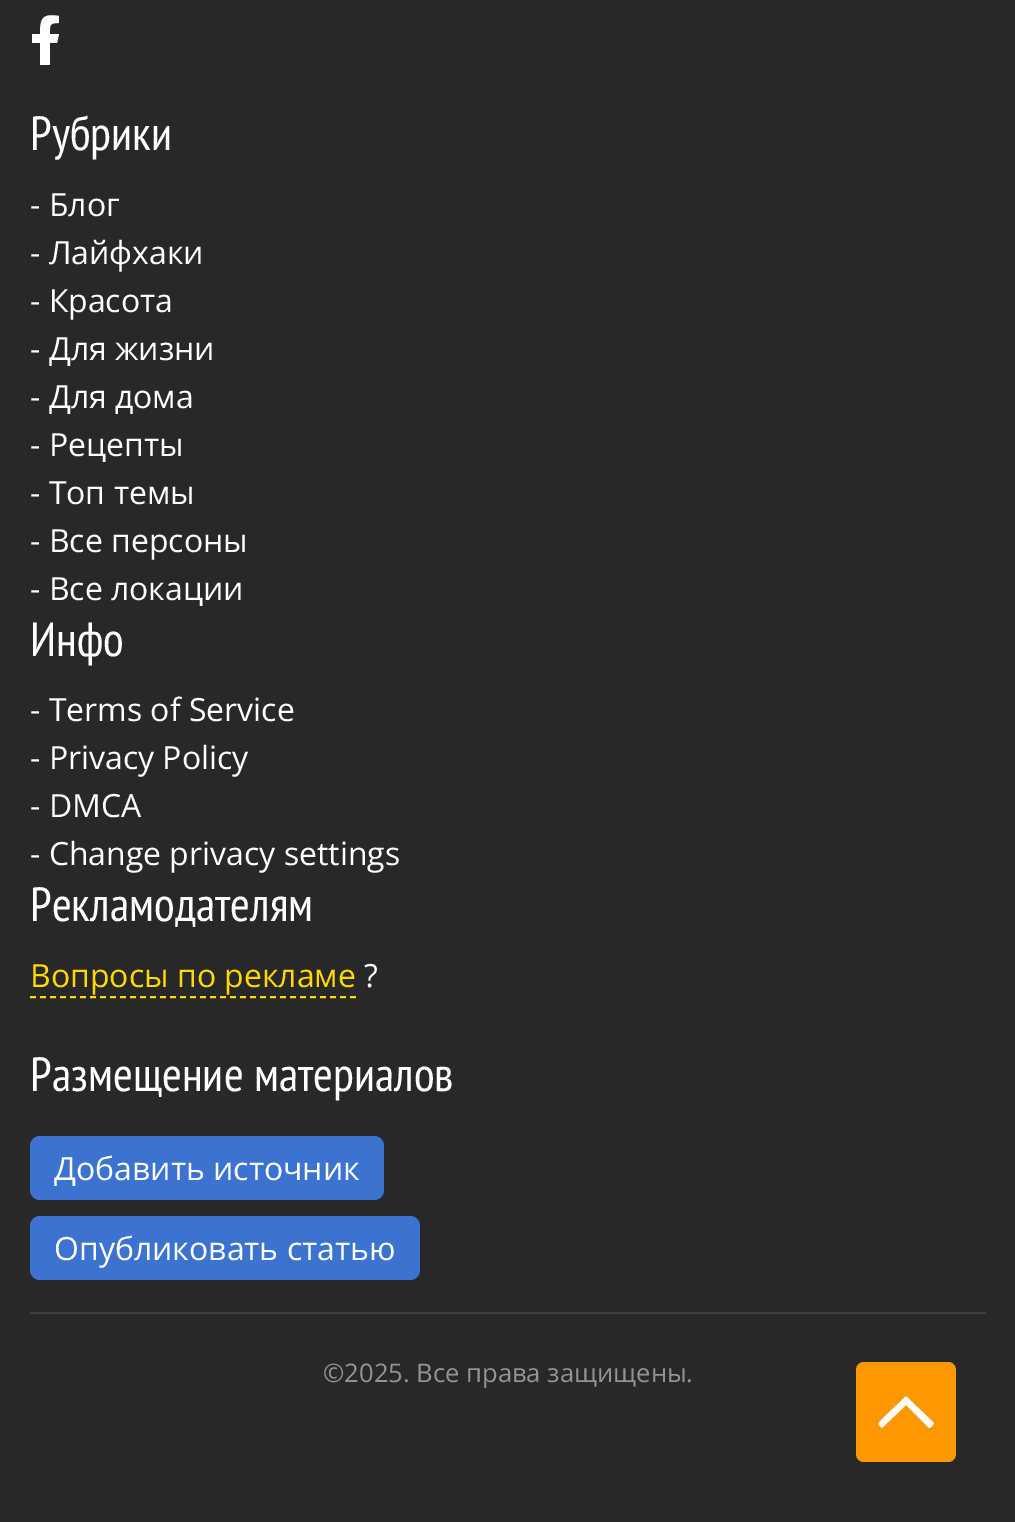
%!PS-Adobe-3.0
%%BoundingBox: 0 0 1015 1522
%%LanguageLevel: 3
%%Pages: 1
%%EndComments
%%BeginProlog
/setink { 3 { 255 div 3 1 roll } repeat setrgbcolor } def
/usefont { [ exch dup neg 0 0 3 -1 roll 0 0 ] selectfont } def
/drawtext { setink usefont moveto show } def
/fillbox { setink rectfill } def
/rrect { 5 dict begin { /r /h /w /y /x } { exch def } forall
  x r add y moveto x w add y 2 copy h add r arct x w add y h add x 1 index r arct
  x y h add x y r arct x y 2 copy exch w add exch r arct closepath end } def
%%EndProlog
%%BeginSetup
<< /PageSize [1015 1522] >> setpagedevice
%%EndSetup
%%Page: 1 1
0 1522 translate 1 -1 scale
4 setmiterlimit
0 0 1015 1522 40 40 40 fillbox
255 255 255 setink
57 43 moveto 59 34 lineto 50 34 lineto 50 25 49 23 59 23 curveto 59 16 lineto 42 13 40 19 40 34 curveto 32 34 lineto 32 43 lineto 40 43 lineto 40 65 lineto 50 65 lineto 50 43 lineto closepath fill
(Рубрики) 30 150 /PTSansNarrow-Regular 48 255 255 255 drawtext
(- Блог) 30 216 /OpenSans-Regular 32 255 255 255 drawtext
(- Лайфхаки) 30 264 /OpenSans-Regular 32 255 255 255 drawtext
(- Красота) 30 312 /OpenSans-Regular 32 255 255 255 drawtext
(- Для жизни) 30 360 /OpenSans-Regular 32 255 255 255 drawtext
(- Для дома) 30 408 /OpenSans-Regular 32 255 255 255 drawtext
(- Рецепты) 30 456 /OpenSans-Regular 32 255 255 255 drawtext
(- Топ темы) 30 504 /OpenSans-Regular 32 255 255 255 drawtext
(- Все персоны) 30 552 /OpenSans-Regular 32 255 255 255 drawtext
(- Все локации) 30 600 /OpenSans-Regular 32 255 255 255 drawtext
(Инфо) 30 656 /PTSansNarrow-Regular 48 255 255 255 drawtext
(- Terms of Service) 30 721 /OpenSans-Regular 32 255 255 255 drawtext
(- Privacy Policy) 30 769 /OpenSans-Regular 32 255 255 255 drawtext
(- DMCA) 30 817 /OpenSans-Regular 32 255 255 255 drawtext
(- Change privacy settings) 30 865 /OpenSans-Regular 32 255 255 255 drawtext
(Рекламодателям) 30 921 /PTSansNarrow-Regular 48 255 255 255 drawtext
(Вопросы по рекламе) 30 987 /OpenSans-Regular 32 255 217 0 drawtext
2 setlinewidth
[6 4] 0 setdash
30 997 moveto 356 997 lineto stroke
(?) 364 987 /OpenSans-Regular 32 255 255 255 drawtext
(Размещение материалов) 30 1091 /PTSansNarrow-Regular 48 255 255 255 drawtext
60 114 208 setink
30 1136 354 64 10 rrect fill
(Добавить источник) 54 1180 /OpenSans-Regular 32 255 255 255 drawtext
60 114 208 setink
30 1216 390 64 10 rrect fill
(Опубликовать статью) 54 1260 /OpenSans-Regular 32 255 255 255 drawtext
30 1312 956 2 62 62 62 fillbox
(©2025. Все права защищены.) 323 1382 /OpenSans-Regular 25.6 148 148 148 drawtext
255 152 0 setink
856 1362 100 100 8 rrect fill
255 255 255 setink
879 1425 moveto 880 1426 882 1429 883 1427 curveto 906 1405 lineto 925 1424 lineto 930 1429 929 1429 933 1425 curveto 934 1423 lineto 911 1401 lineto 905 1395 907 1395 901 1401 curveto 883 1418 lineto 881 1421 877 1423 879 1425 curveto closepath fill
showpage
%%EOF
